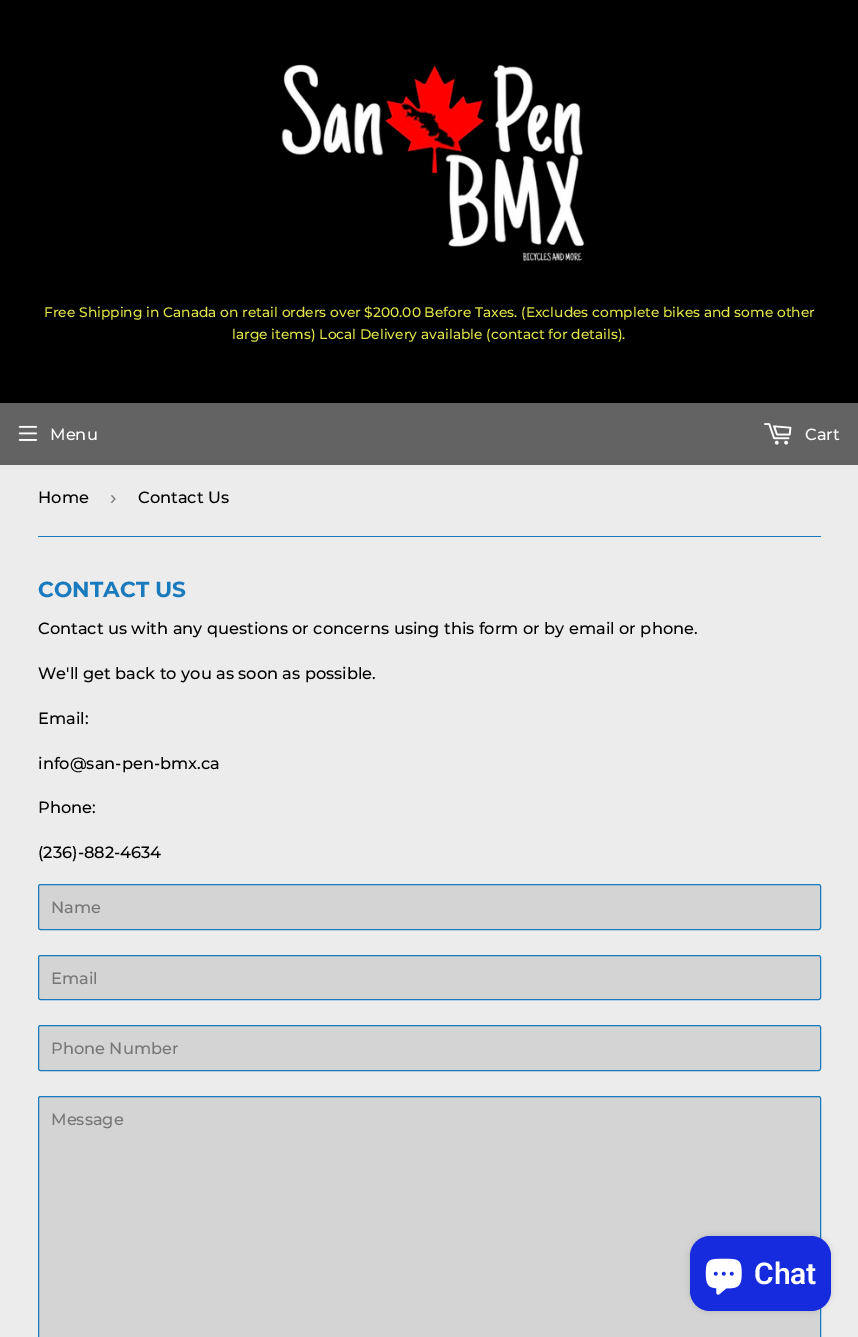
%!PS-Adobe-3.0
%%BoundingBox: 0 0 858 1337
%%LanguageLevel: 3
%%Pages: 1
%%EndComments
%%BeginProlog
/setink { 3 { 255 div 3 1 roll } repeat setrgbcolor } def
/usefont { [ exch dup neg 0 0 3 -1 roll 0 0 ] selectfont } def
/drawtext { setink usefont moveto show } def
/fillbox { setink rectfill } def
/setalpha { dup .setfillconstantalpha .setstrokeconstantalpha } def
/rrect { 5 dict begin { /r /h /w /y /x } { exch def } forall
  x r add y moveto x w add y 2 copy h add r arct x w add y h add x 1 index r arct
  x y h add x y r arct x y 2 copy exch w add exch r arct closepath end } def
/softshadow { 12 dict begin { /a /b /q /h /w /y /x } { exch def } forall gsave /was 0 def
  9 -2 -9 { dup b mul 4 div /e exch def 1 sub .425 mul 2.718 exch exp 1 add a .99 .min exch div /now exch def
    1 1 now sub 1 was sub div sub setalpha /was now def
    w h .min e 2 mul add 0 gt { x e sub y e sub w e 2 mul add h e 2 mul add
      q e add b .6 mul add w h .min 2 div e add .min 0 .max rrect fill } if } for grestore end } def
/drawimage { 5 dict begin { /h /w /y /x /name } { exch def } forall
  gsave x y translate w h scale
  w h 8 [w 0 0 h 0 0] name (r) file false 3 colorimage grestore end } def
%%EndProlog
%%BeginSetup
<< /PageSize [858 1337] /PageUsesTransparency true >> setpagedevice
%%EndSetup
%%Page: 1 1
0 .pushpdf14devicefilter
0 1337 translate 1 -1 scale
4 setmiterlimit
0 0 858 1337 236 236 236 fillbox
0 0 858 403 0 0 0 fillbox
(assets/img1.rgb) 281 64 304 197 drawimage
(Free Shipping in Canada on retail orders over $200.00 Before Taxes. \(Excludes complete bikes and some other) 44 317 /Montserrat-Medium 13.8 227 229 73 drawtext
(large items\) Local Delivery available \(contact for details\).) 232 339 /Montserrat-Medium 13.8 227 229 73 drawtext
0 403 858 62 99 99 99 fillbox
(assets/img2.rgb) 18 425 20 16 drawimage
(Menu) 50 440 /Montserrat-Medium 16.25 255 255 255 drawtext
(assets/img3.rgb) 764 423 28 22 drawimage
(Cart) 805 440 /Montserrat-Medium 16.25 255 255 255 drawtext
38 536 783 1 25 123 189 fillbox
(Home) 38 503 /Montserrat-Medium 16.25 0 0 0 drawtext
(›) 110 504 /LiberationSans-Regular 19 118 118 118 drawtext
(Contact Us) 138 503 /Montserrat-Medium 16.25 0 0 0 drawtext
(CONTACT US) 38 597 /Montserrat-Bold 21.75 25 123 189 drawtext
(Contact us with any questions or concerns using this form or by email or phone.) 38 634 /Montserrat-Medium 16.25 0 0 0 drawtext
(We'll get back to you as soon as possible.) 38 679 /Montserrat-Medium 16.25 0 0 0 drawtext
(Email:) 38 724 /Montserrat-Medium 16.25 0 0 0 drawtext
(info@san-pen-bmx.ca) 38 769 /Montserrat-Medium 16.25 0 0 0 drawtext
(Phone:) 38 813 /Montserrat-Medium 16.25 0 0 0 drawtext
(\(236\)-882-4634) 38 858 /Montserrat-Medium 16.25 0 0 0 drawtext
212 212 212 setink
38.5 884.5 782 45 2 rrect gsave fill grestore
25 123 189 setink
stroke
(Name) 51 913 /Montserrat-Medium 16.25 118 118 118 drawtext
212 212 212 setink
38.5 955.5 782 44 2 rrect gsave fill grestore
25 123 189 setink
stroke
(Email) 51 984 /Montserrat-Medium 16.25 118 118 118 drawtext
212 212 212 setink
38.5 1025.5 782 45 2 rrect gsave fill grestore
25 123 189 setink
stroke
(Phone Number) 51 1054 /Montserrat-Medium 16.25 118 118 118 drawtext
212 212 212 setink
38.5 1096.5 782 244 2 rrect gsave fill grestore
25 123 189 setink
stroke
(Message) 51 1125 /Montserrat-Medium 16.25 118 118 118 drawtext
0 0 0 setink
690 1236 141 75 20 3 0.15 softshadow
22 43 222 setink
690 1236 141 75 20 rrect fill
(assets/img4.rgb) 705 1258 37 37 drawimage
(Chat) 754 1284 /Roboto-SemiBold 30 255 255 255 drawtext
.poppdf14devicefilter showpage
%%EOF
